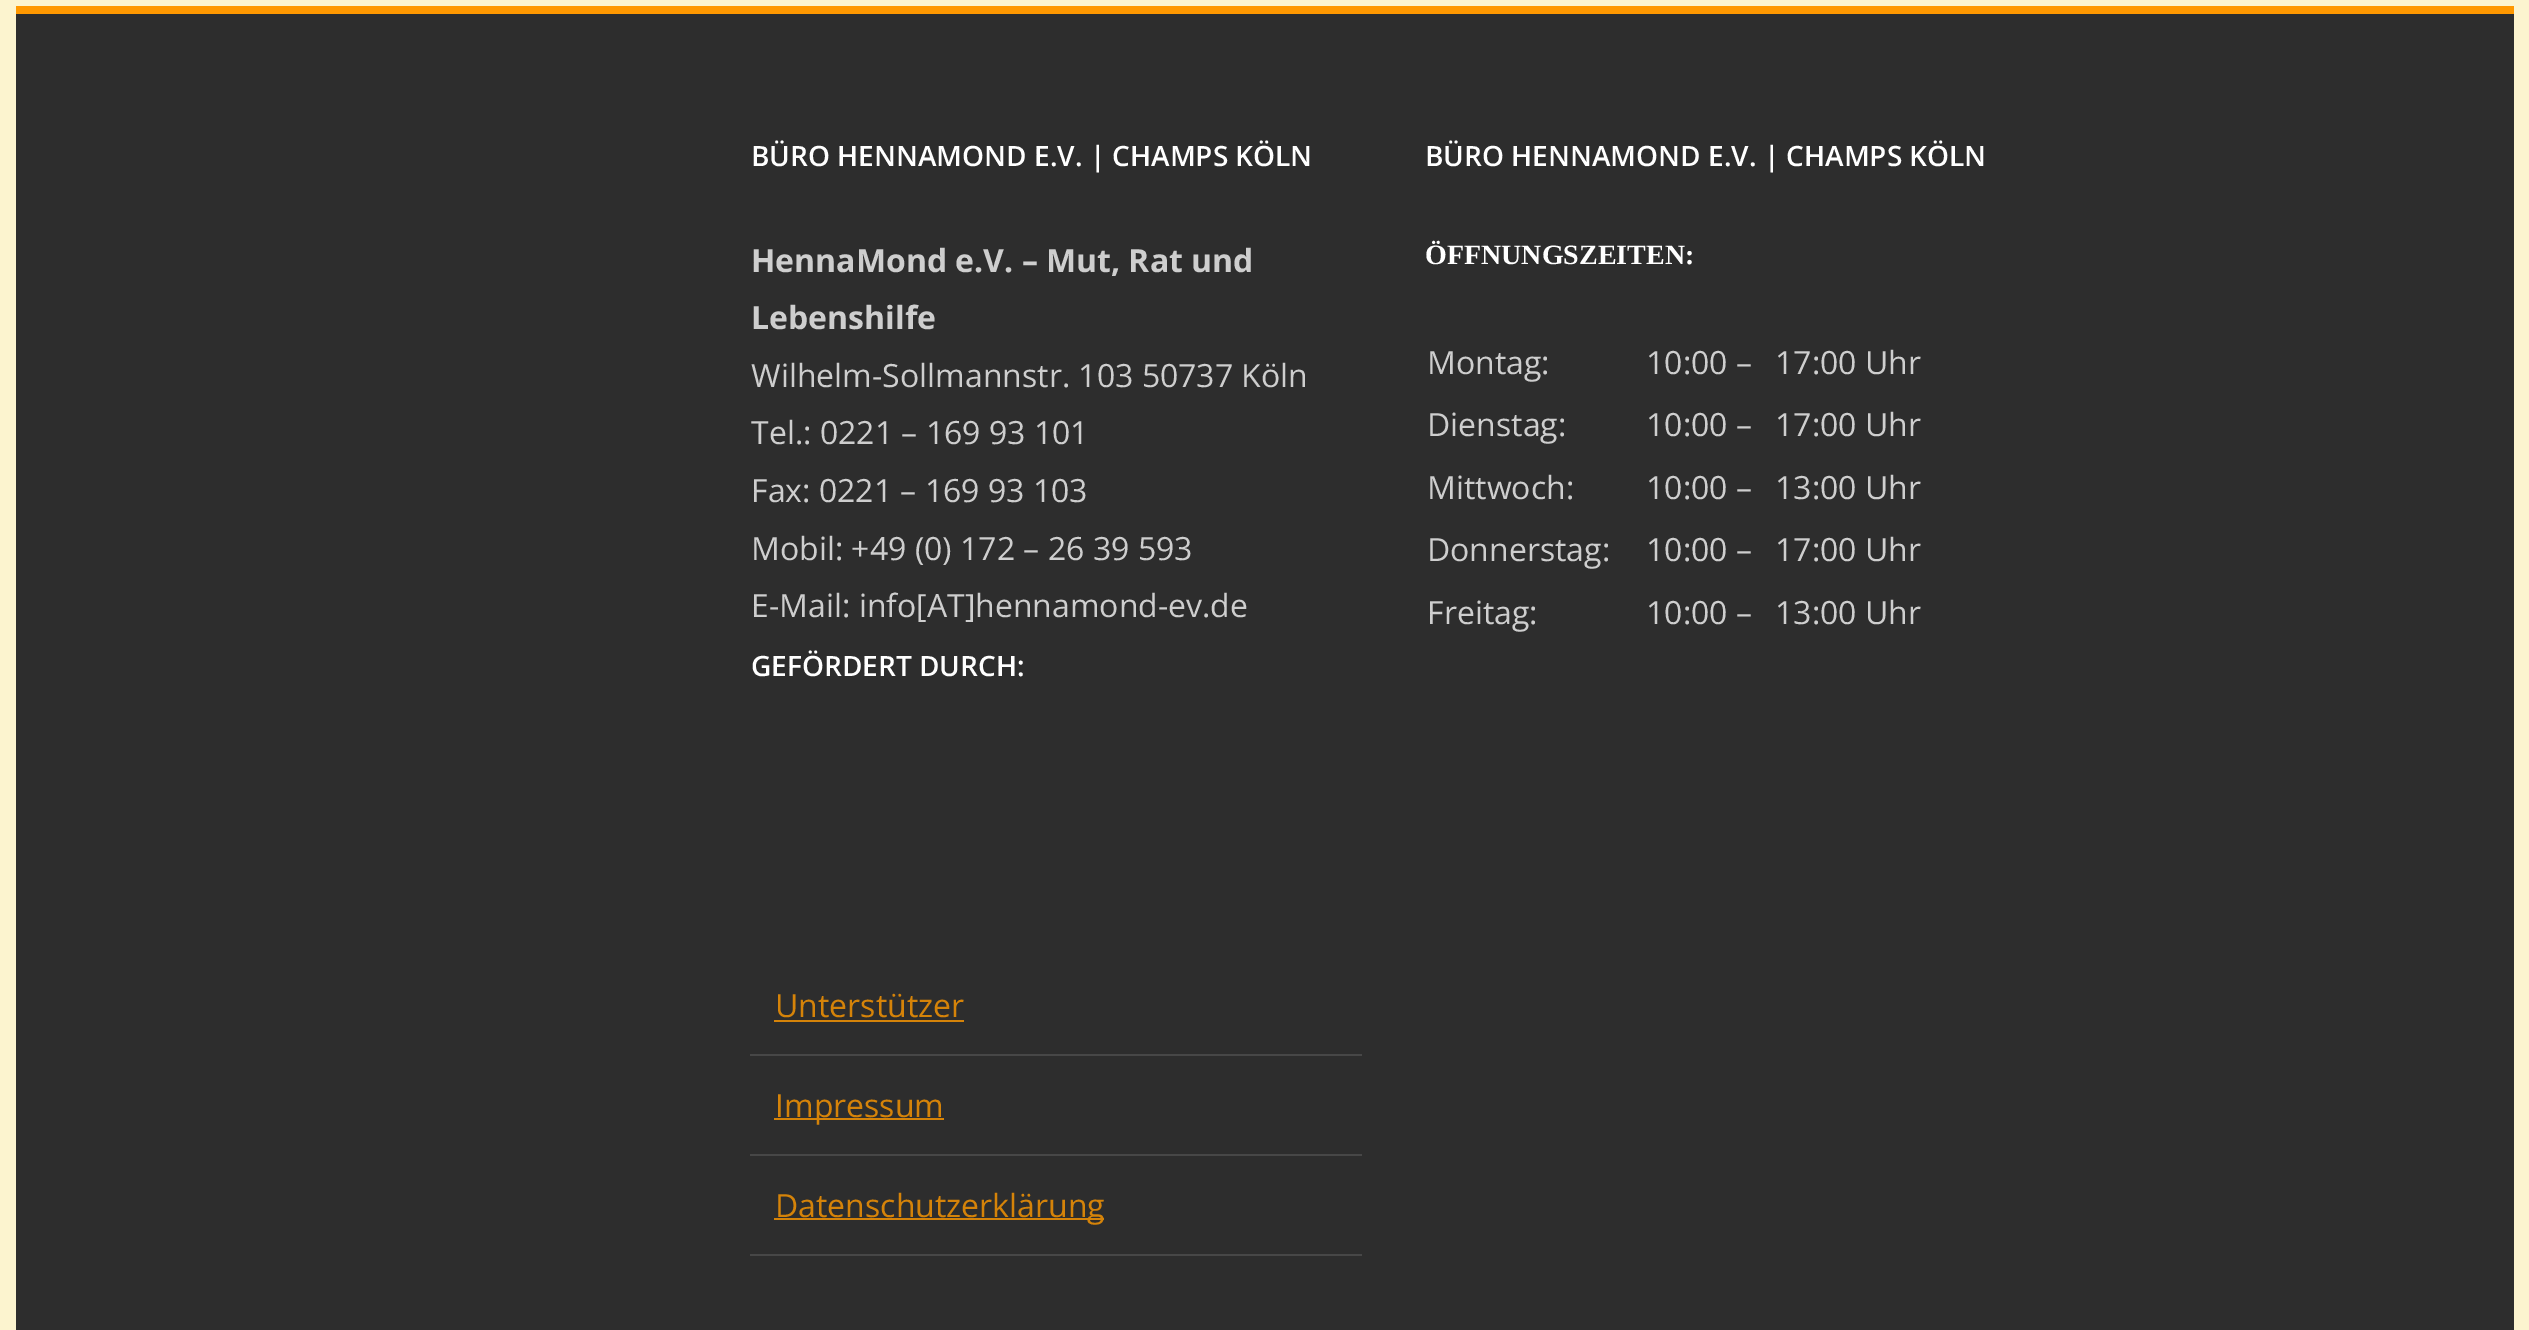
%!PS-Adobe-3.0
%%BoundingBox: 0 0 2529 1330
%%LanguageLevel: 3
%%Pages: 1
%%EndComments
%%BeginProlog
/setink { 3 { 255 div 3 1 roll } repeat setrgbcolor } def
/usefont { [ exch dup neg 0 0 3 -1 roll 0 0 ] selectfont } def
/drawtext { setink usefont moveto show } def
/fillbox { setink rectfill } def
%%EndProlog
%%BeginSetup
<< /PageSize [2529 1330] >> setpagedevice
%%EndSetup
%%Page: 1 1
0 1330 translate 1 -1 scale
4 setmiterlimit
0 0 2529 1330 252 244 207 fillbox
16 14 2498 1316 45 45 45 fillbox
16 6 2498 8 255 152 0 fillbox
(BÜRO HENNAMOND E.V. | CHAMPS KÖLN) 751 166 /OpenSans-SemiBold 28 255 255 255 drawtext
(HennaMond e.V. – Mut, Rat und) 751 272 /OpenSans-Bold 32 206 206 206 drawtext
(Lebenshilfe) 751 329 /OpenSans-Bold 32 206 206 206 drawtext
(Wilhelm-Sollmannstr. 103 50737 Köln) 751 387 /OpenSans-Regular 32 206 206 206 drawtext
(Tel.: 0221 – 169 93 101) 751 444 /OpenSans-Regular 32 206 206 206 drawtext
(Fax: 0221 – 169 93 103) 751 502 /OpenSans-Regular 32 206 206 206 drawtext
(Mobil: +49 \(0\) 172 – 26 39 593) 751 560 /OpenSans-Regular 32 206 206 206 drawtext
(E-Mail: info[AT]hennamond-ev.de) 751 617 /OpenSans-Regular 32 206 206 206 drawtext
(BÜRO HENNAMOND E.V. | CHAMPS KÖLN) 1425 166 /OpenSans-SemiBold 28 255 255 255 drawtext
(ÖFFNUNGSZEITEN:) 1425 264 /LiberationSerif-Bold 28 255 255 255 drawtext
(Montag:) 1427 374 /OpenSans-Regular 32 206 206 206 drawtext
(10:00 –) 1646 374 /OpenSans-Regular 32 206 206 206 drawtext
(17:00 Uhr) 1775 374 /OpenSans-Regular 32 206 206 206 drawtext
(Dienstag:) 1427 436 /OpenSans-Regular 32 206 206 206 drawtext
(10:00 –) 1646 436 /OpenSans-Regular 32 206 206 206 drawtext
(17:00 Uhr) 1775 436 /OpenSans-Regular 32 206 206 206 drawtext
(Mittwoch:) 1427 499 /OpenSans-Regular 32 206 206 206 drawtext
(10:00 –) 1646 499 /OpenSans-Regular 32 206 206 206 drawtext
(13:00 Uhr) 1775 499 /OpenSans-Regular 32 206 206 206 drawtext
(Donnerstag:) 1427 561 /OpenSans-Regular 32 206 206 206 drawtext
(10:00 –) 1646 561 /OpenSans-Regular 32 206 206 206 drawtext
(17:00 Uhr) 1775 561 /OpenSans-Regular 32 206 206 206 drawtext
(Freitag:) 1427 624 /OpenSans-Regular 32 206 206 206 drawtext
(10:00 –) 1646 624 /OpenSans-Regular 32 206 206 206 drawtext
(13:00 Uhr) 1775 624 /OpenSans-Regular 32 206 206 206 drawtext
(GEFÖRDERT DURCH:) 751 676 /OpenSans-SemiBold 28 255 255 255 drawtext
750 1054 612 2 71 71 71 fillbox
(Unterstützer) 775 1017 /OpenSans-Regular 32 213 131 9 drawtext
774 1020 190 2 213 131 9 fillbox
750 1154 612 2 71 71 71 fillbox
774 1118 170 2 213 131 9 fillbox
(Impressum) 775 1117 /OpenSans-Regular 32 213 131 9 drawtext
750 1254 612 2 71 71 71 fillbox
774 1218 330 2 213 131 9 fillbox
(Datenschutzerklärung) 775 1217 /OpenSans-Regular 32 213 131 9 drawtext
showpage
%%EOF
